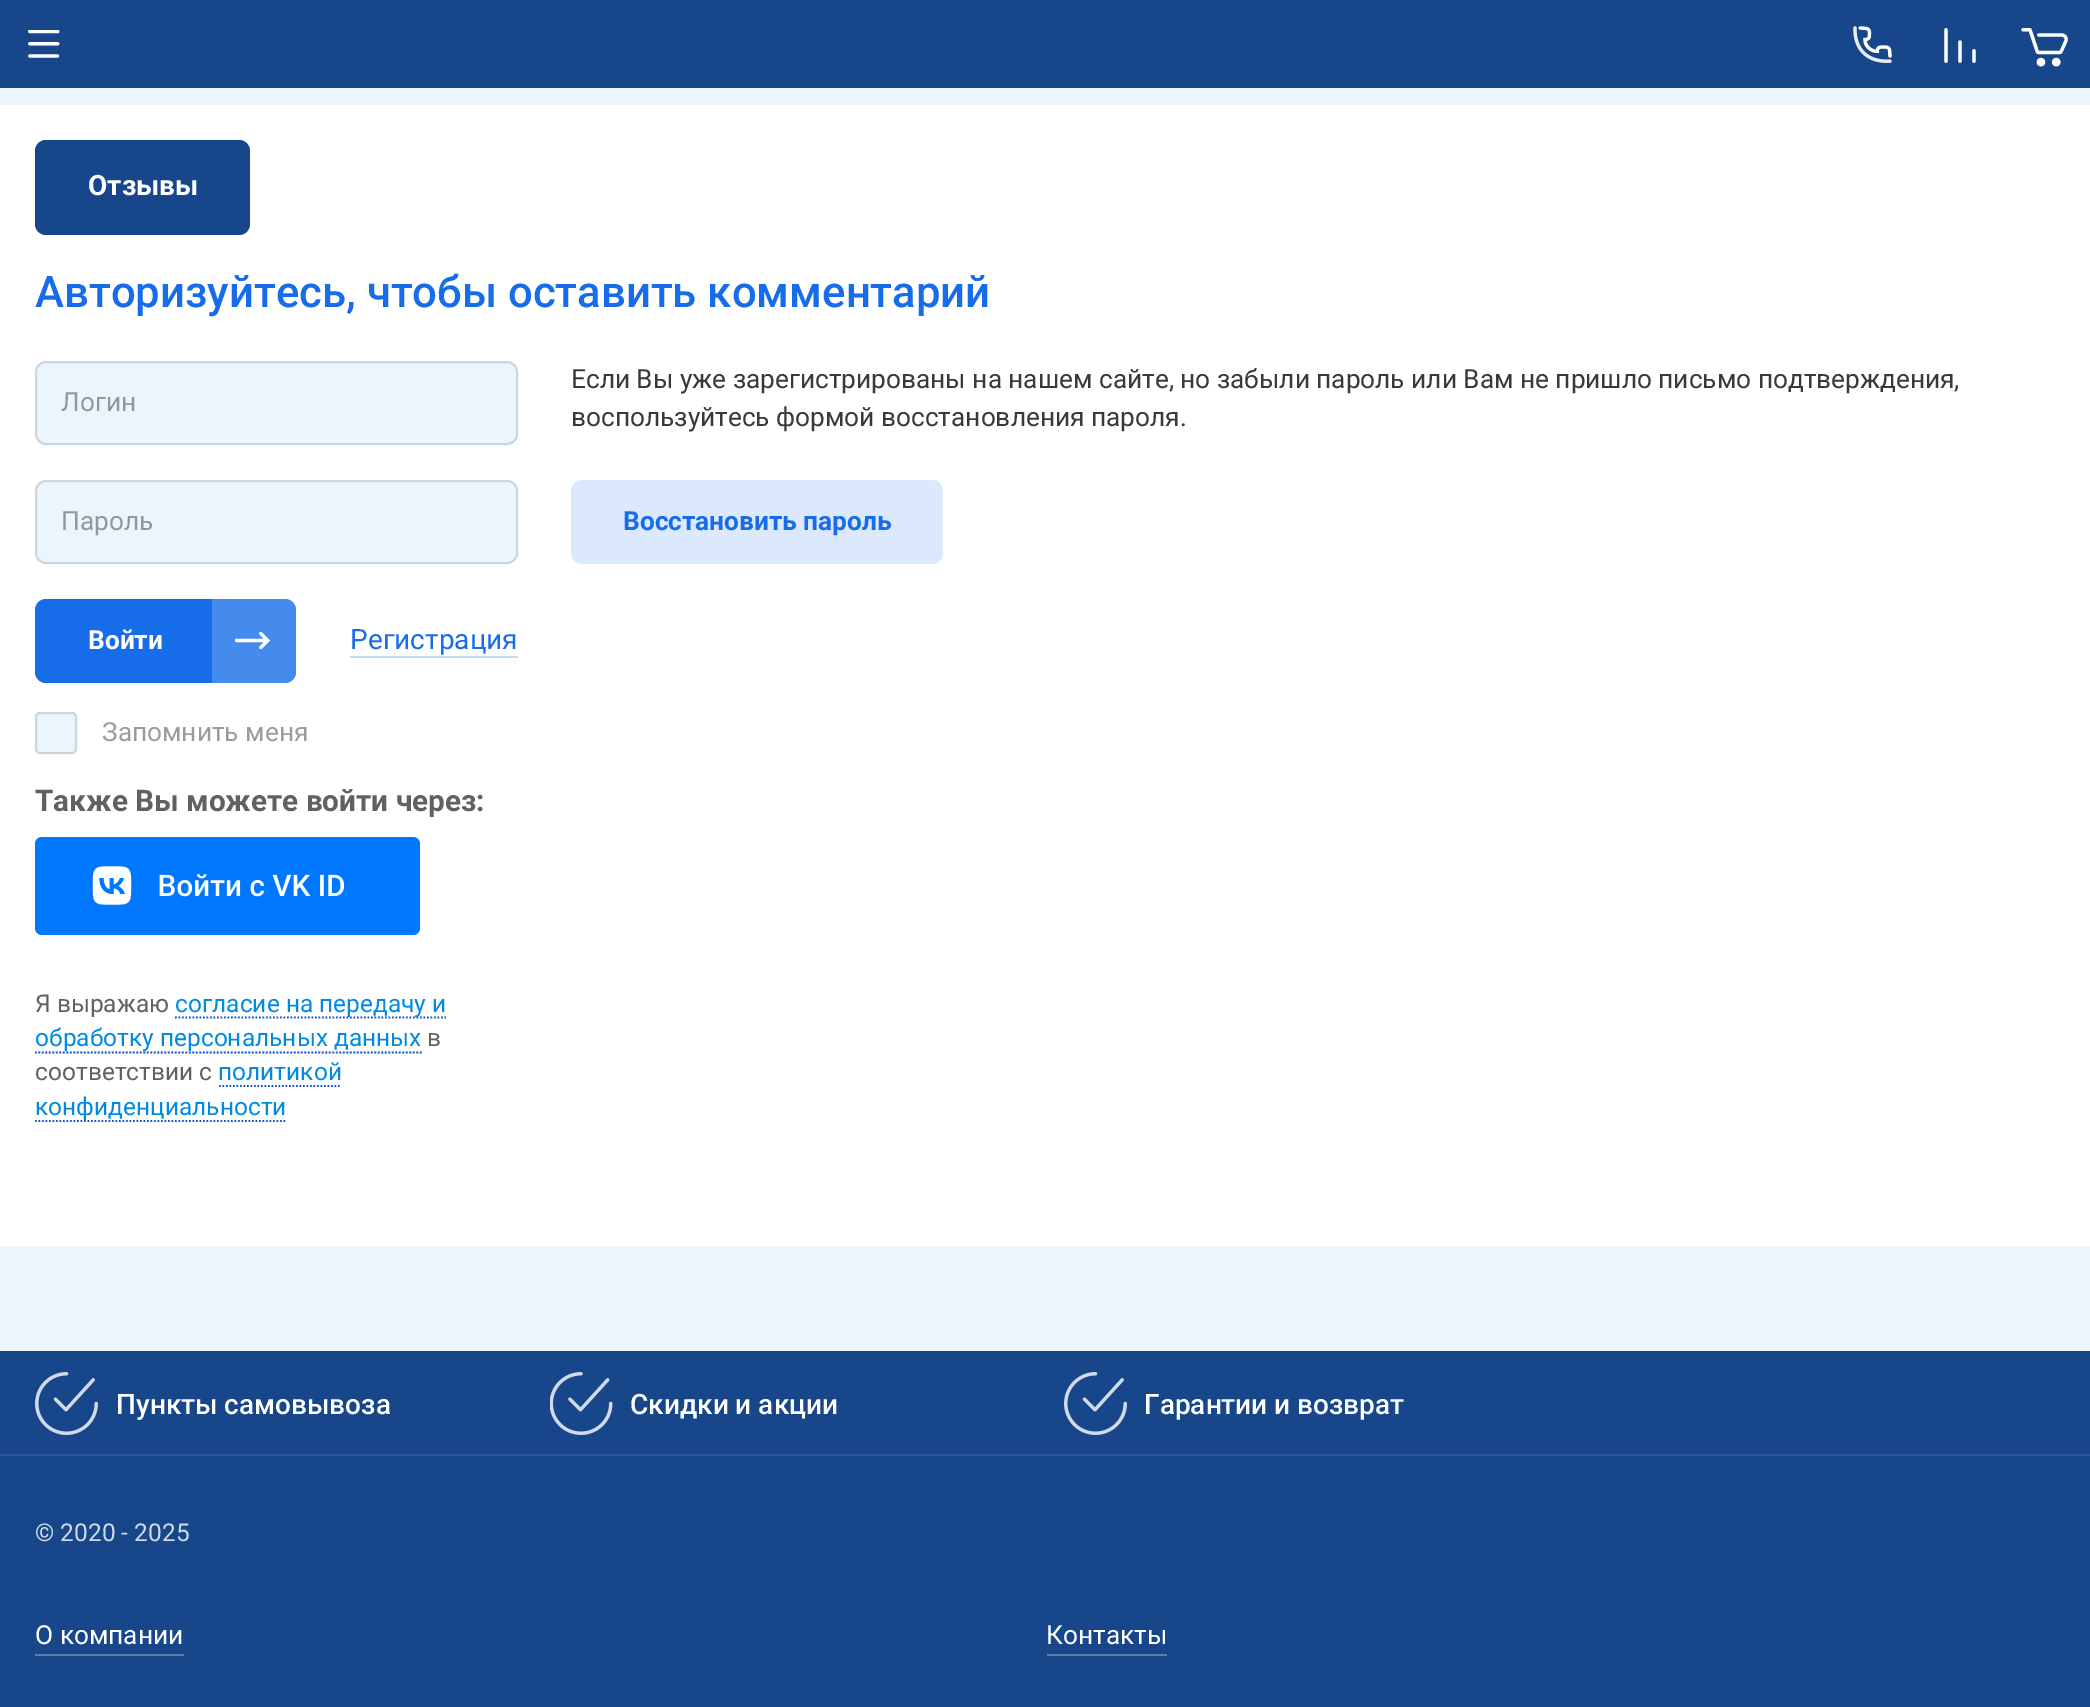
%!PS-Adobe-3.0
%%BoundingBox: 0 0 2090 1707
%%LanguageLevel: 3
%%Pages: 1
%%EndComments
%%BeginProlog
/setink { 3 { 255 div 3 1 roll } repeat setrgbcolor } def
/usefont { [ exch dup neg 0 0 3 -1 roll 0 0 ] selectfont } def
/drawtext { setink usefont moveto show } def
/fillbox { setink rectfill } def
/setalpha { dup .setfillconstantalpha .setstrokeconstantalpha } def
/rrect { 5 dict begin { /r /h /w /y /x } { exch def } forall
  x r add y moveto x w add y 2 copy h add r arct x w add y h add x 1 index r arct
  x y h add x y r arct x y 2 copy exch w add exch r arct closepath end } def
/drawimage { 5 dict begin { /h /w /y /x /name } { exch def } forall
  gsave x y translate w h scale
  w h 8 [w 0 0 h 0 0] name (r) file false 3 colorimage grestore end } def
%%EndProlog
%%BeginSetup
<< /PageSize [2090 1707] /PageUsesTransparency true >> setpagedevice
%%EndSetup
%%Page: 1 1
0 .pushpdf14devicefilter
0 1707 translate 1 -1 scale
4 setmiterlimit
0 0 2090 1707 236 245 252 fillbox
0 0 2090 88 23 70 138 fillbox
(assets/img1.rgb) 28 30 32 28 drawimage
(assets/img2.rgb) 1853 26 39 37 drawimage
(assets/img3.rgb) 1944 28 32 35 drawimage
(assets/img4.rgb) 2021 28 47 39 drawimage
0 105 2090 1141 255 255 255 fillbox
23 70 138 setink
35 140 215 95 11 rrect fill
(Отзывы) 88 195 /Roboto-Bold 28 255 255 255 drawtext
(Авторизуйтесь, чтобы оставить комментарий) 35 307 /Roboto-Medium 43.75 23 109 233 drawtext
236 245 252 setink
35 361 483 84 11 rrect fill
0.15 setalpha
16 33 59 setink
2 setlinewidth
36 362 481 82 10 rrect stroke
1 setalpha
(Логин) 61 411 /Roboto-Regular 26.25 147 151 155 drawtext
236 245 252 setink
35 480 483 84 11 rrect fill
0.15 setalpha
16 33 59 setink
36 481 481 82 10 rrect stroke
1 setalpha
(Пароль) 61 530 /Roboto-Regular 26.25 147 151 155 drawtext
23 109 233 setink
35 599 261 84 11 rrect fill
(Войти) 88 649 /Roboto-Bold 26.25 255 255 255 drawtext
0.2 setalpha
212 599 moveto 285 599 lineto 291 599 296 604 296 610 curveto 296 672 lineto 296 678 291 683 285 683 curveto 212 683 lineto closepath fill
1 setalpha
(assets/img5.rgb) 235 632 36 17 drawimage
350 656 168 2 197 219 250 fillbox
(Регистрация) 350 649 /Roboto-Regular 28 23 109 233 drawtext
236 245 252 setink
35 712 42 42 5 rrect fill
0.15 setalpha
16 33 59 setink
36 713 40 40 4 rrect stroke
1 setalpha
(Запомнить меня) 102 741 /Roboto-Regular 26.25 156 156 156 drawtext
(Если Вы уже зарегистрированы на нашем сайте, но забыли пароль или Вам не пришло письмо подтверждения,) 571 388 /Roboto-Regular 26.25 57 57 57 drawtext
(воспользуйтесь формой восстановления пароля.) 571 426 /Roboto-Regular 26.25 57 57 57 drawtext
220 233 252 setink
571 480 372 84 11 rrect fill
(Восстановить пароль) 623 530 /Roboto-Bold 26.25 23 109 233 drawtext
(Также Вы можете войти через:) 35 811 /Roboto-Bold 29.75 97 97 97 drawtext
0 119 255 setink
35 837 385 98 7 rrect fill
(assets/img6.rgb) 92 866 253 39 drawimage
(Я выражаю) 35 1012 /Roboto-Regular 24.5 97 97 97 drawtext
17 85 204 setink
1.8 setlinewidth
[1.75 1.75] 0 setdash
175 1017.5 moveto 446 1017.5 lineto stroke
(согласие на передачу и) 175 1012 /Roboto-Regular 24.5 0 139 225 drawtext
17 85 204 setink
35 1052.5 moveto 422 1052.5 lineto stroke
(обработку персональных данных) 35 1046 /Roboto-Regular 24.5 0 139 225 drawtext
(в) 427 1046 /Roboto-Regular 24.5 97 97 97 drawtext
(соответствии с) 35 1080 /Roboto-Regular 24.5 97 97 97 drawtext
(политикой) 218 1080 /Roboto-Regular 24.5 0 139 225 drawtext
17 85 204 setink
219 1086 moveto 341 1086 lineto stroke
(конфиденциальности) 35 1115 /Roboto-Regular 24.5 0 139 225 drawtext
17 85 204 setink
35 1121 moveto 287 1121 lineto stroke
0 1351 2090 103 23 70 138 fillbox
(assets/img7.rgb) 35 1372 63 63 drawimage
(Пункты самовывоза) 116 1414 /Roboto-Medium 28 255 255 255 drawtext
(assets/img8.rgb) 550 1372 63 63 drawimage
(Скидки и акции) 630 1414 /Roboto-Medium 28 255 255 255 drawtext
(assets/img7.rgb) 1064 1372 63 63 drawimage
(Гарантии и возврат) 1144 1414 /Roboto-Medium 28 255 255 255 drawtext
0 1454 2090 2 46 89 150 fillbox
0 1456 2090 251 23 70 138 fillbox
(© 2020 - 2025) 35 1541 /Roboto-Regular 24.5 209 218 232 drawtext
(О компании) 35 1644 /Roboto-Regular 26.25 255 255 255 drawtext
35 1654 149 2 93 126 173 fillbox
(Контакты) 1046 1644 /Roboto-Regular 26.25 255 255 255 drawtext
1047 1654 120 2 93 126 173 fillbox
.poppdf14devicefilter showpage
%%EOF
